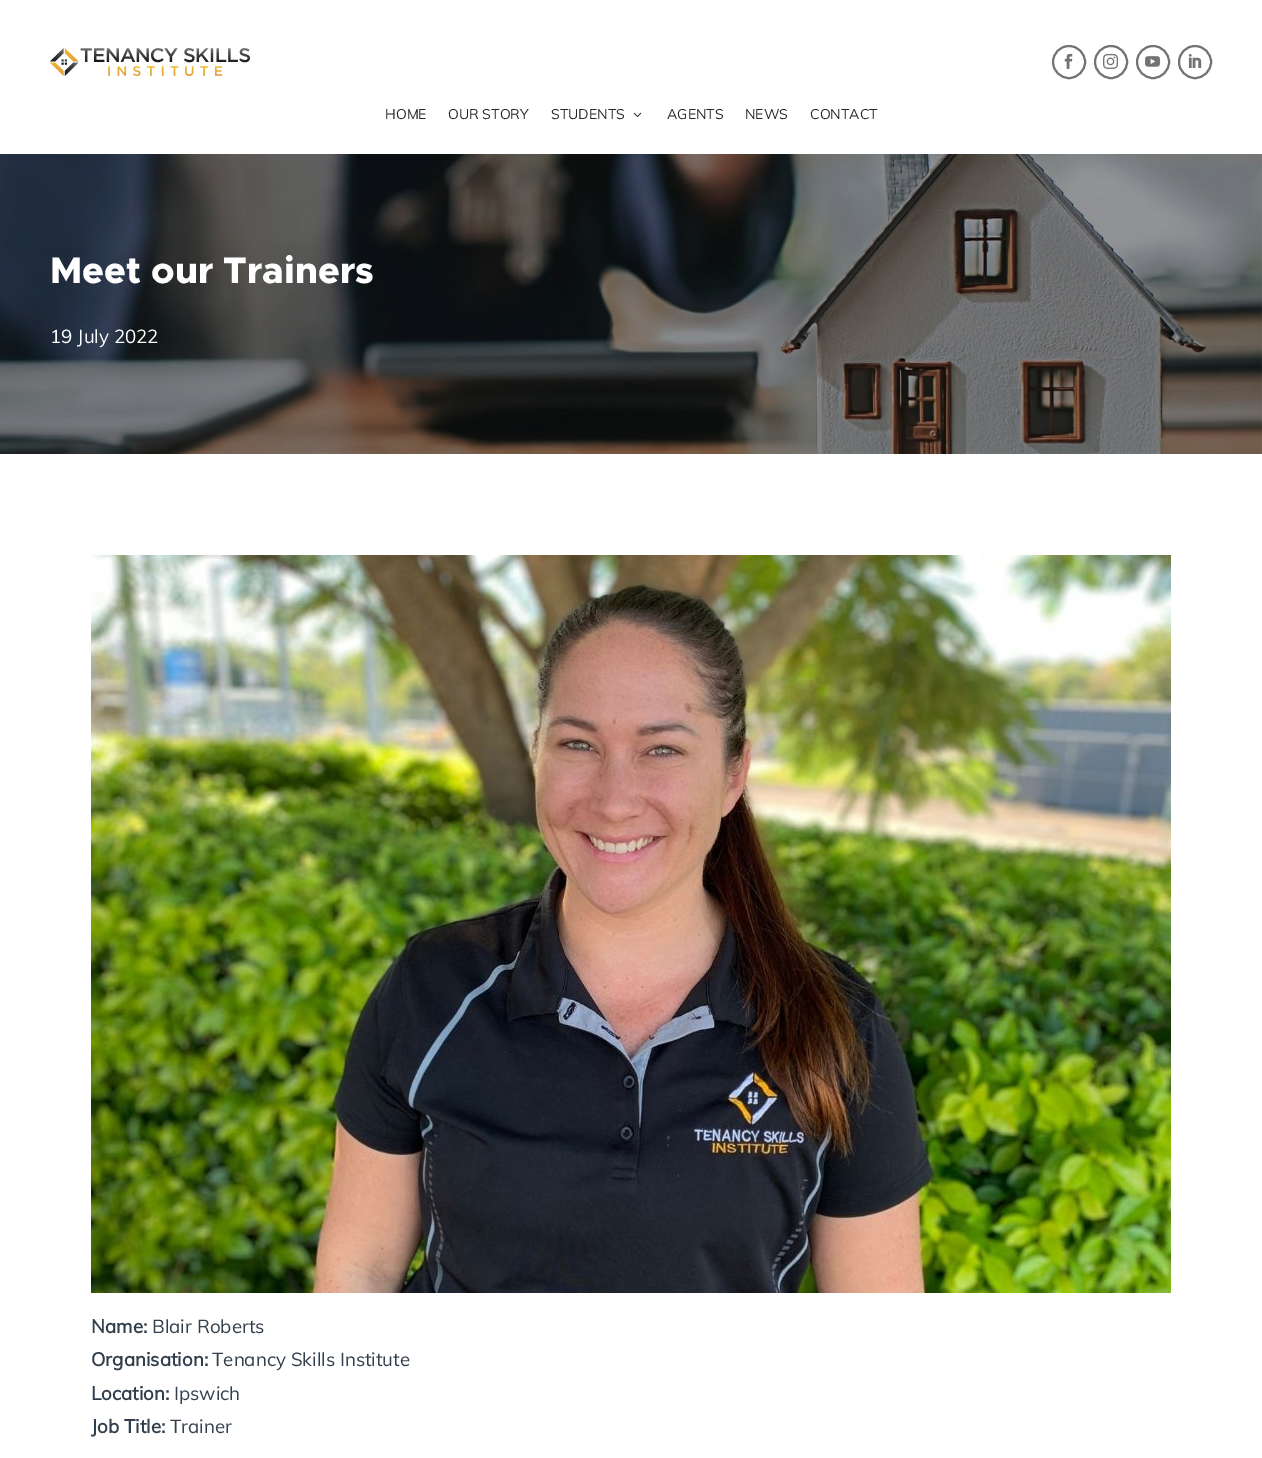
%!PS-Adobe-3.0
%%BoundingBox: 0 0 1262 1458
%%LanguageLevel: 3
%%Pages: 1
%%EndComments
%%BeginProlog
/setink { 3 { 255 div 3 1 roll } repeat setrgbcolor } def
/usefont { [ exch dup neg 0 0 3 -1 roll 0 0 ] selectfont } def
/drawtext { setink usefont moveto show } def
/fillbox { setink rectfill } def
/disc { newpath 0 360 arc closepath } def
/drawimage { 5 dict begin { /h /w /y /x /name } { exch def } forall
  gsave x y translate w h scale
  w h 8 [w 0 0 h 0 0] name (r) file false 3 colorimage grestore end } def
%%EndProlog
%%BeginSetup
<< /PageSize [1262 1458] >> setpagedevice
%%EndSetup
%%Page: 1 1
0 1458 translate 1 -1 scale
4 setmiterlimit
0 0 1262 1458 255 255 255 fillbox
(assets/img1.rgb) 50 48 200 28 drawimage
115 115 115 setink
2 setlinewidth
1069 62 16 disc stroke
(assets/img2.rgb) 1064 53 9 16 drawimage
1111 62 16 disc stroke
(assets/img3.rgb) 1103 53 15 16 drawimage
1153 62 16 disc stroke
(assets/img4.rgb) 1145 56 15 11 drawimage
1195 62 16 disc stroke
(assets/img5.rgb) 1188 54 14 14 drawimage
(HOME) 385 119 /Muli-Regular 14 39 39 39 drawtext
(OUR STORY) 448 119 /Muli-Regular 14 39 39 39 drawtext
(STUDENTS) 551 119 /Muli-Regular 14 39 39 39 drawtext
(assets/img6.rgb) 633 112 9 5 drawimage
(AGENTS) 667 119 /Muli-Regular 14 39 39 39 drawtext
(NEWS) 745 119 /Muli-Regular 14 39 39 39 drawtext
(CONTACT) 810 119 /Muli-Regular 14 39 39 39 drawtext
(assets/img7.rgb) 0 154 1262 300 drawimage
(Meet our Trainers) 50 283 /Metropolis-ExtraBold 37 255 255 255 drawtext
(19 July 2022) 50 343 /Muli-Regular 18.75 255 255 255 drawtext
(assets/img8.rgb) 91 555 1080 738 drawimage
(Name:) 91 1333 /Muli-Bold 18.75 50 63 77 drawtext
(Blair Roberts) 152 1333 /Muli-Regular 18.75 50 63 77 drawtext
(Organisation:) 91 1366 /Muli-Bold 18.75 50 63 77 drawtext
(Tenancy Skills Institute) 212 1366 /Muli-Regular 18.75 50 63 77 drawtext
(Location:) 91 1400 /Muli-Bold 18.75 50 63 77 drawtext
(Ipswich) 174 1400 /Muli-Regular 18.75 50 63 77 drawtext
(Job Title:) 91 1433 /Muli-Bold 18.75 50 63 77 drawtext
(Trainer) 170 1433 /Muli-Regular 18.75 50 63 77 drawtext
showpage
%%EOF
